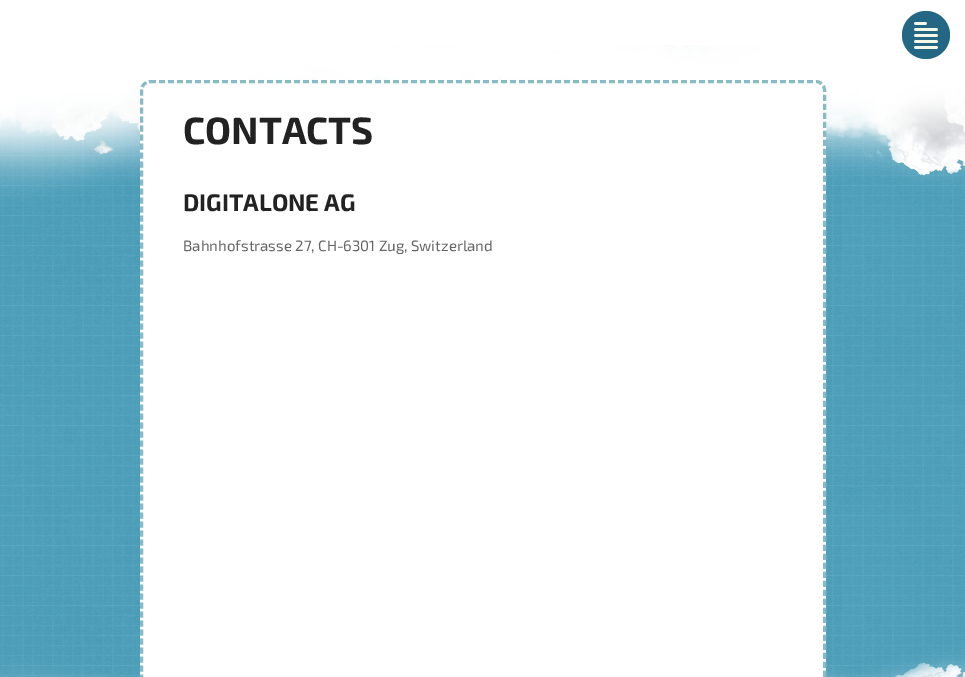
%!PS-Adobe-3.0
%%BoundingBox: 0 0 965 677
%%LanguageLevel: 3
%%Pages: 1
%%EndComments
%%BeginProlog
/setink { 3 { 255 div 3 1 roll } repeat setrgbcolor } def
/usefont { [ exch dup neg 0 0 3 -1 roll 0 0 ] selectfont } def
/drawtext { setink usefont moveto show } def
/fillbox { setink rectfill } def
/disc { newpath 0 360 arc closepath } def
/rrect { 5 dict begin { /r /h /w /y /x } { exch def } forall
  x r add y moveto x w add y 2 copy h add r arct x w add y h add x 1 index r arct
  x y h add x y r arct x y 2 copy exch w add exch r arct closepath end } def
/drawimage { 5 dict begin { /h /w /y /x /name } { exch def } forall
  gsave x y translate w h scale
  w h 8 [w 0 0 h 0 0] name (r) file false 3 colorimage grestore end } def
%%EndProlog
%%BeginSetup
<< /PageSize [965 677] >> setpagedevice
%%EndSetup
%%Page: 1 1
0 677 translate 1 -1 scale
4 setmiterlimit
0 0 965 677 255 255 255 fillbox
(assets/img2.rgb) 0 45 965 632 drawimage
(assets/img3.rgb) 0 45 965 632 drawimage
35 103 133 setink
926 35 24 disc fill
(assets/img1.rgb) 914 22 24 27 drawimage
255 255 255 setink
140 80 686 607 10 rrect fill
136 187 196 setink
3 setlinewidth
[6 3] 0 setdash
150 81.5 moveto 816 81.5 lineto 820.5 81.5 824.5 85.5 824.5 90 curveto 824.5 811 lineto 824.5 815.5 820.5 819.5 816 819.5 curveto 150 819.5 lineto 145.5 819.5 141.5 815.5 141.5 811 curveto 141.5 90 lineto 141.5 85.5 145.5 81.5 150 81.5 curveto closepath stroke
(CONTACTS) 183 144 /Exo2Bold-Bold 38 34 34 34 drawtext
(DIGITALONE AG) 183 211 /Exo2Bold-Bold 24 34 34 34 drawtext
(Bahnhofstrasse 27, CH-6301 Zug, Switzerland) 183 251 /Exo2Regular-Regular 15 102 102 102 drawtext
showpage
%%EOF
